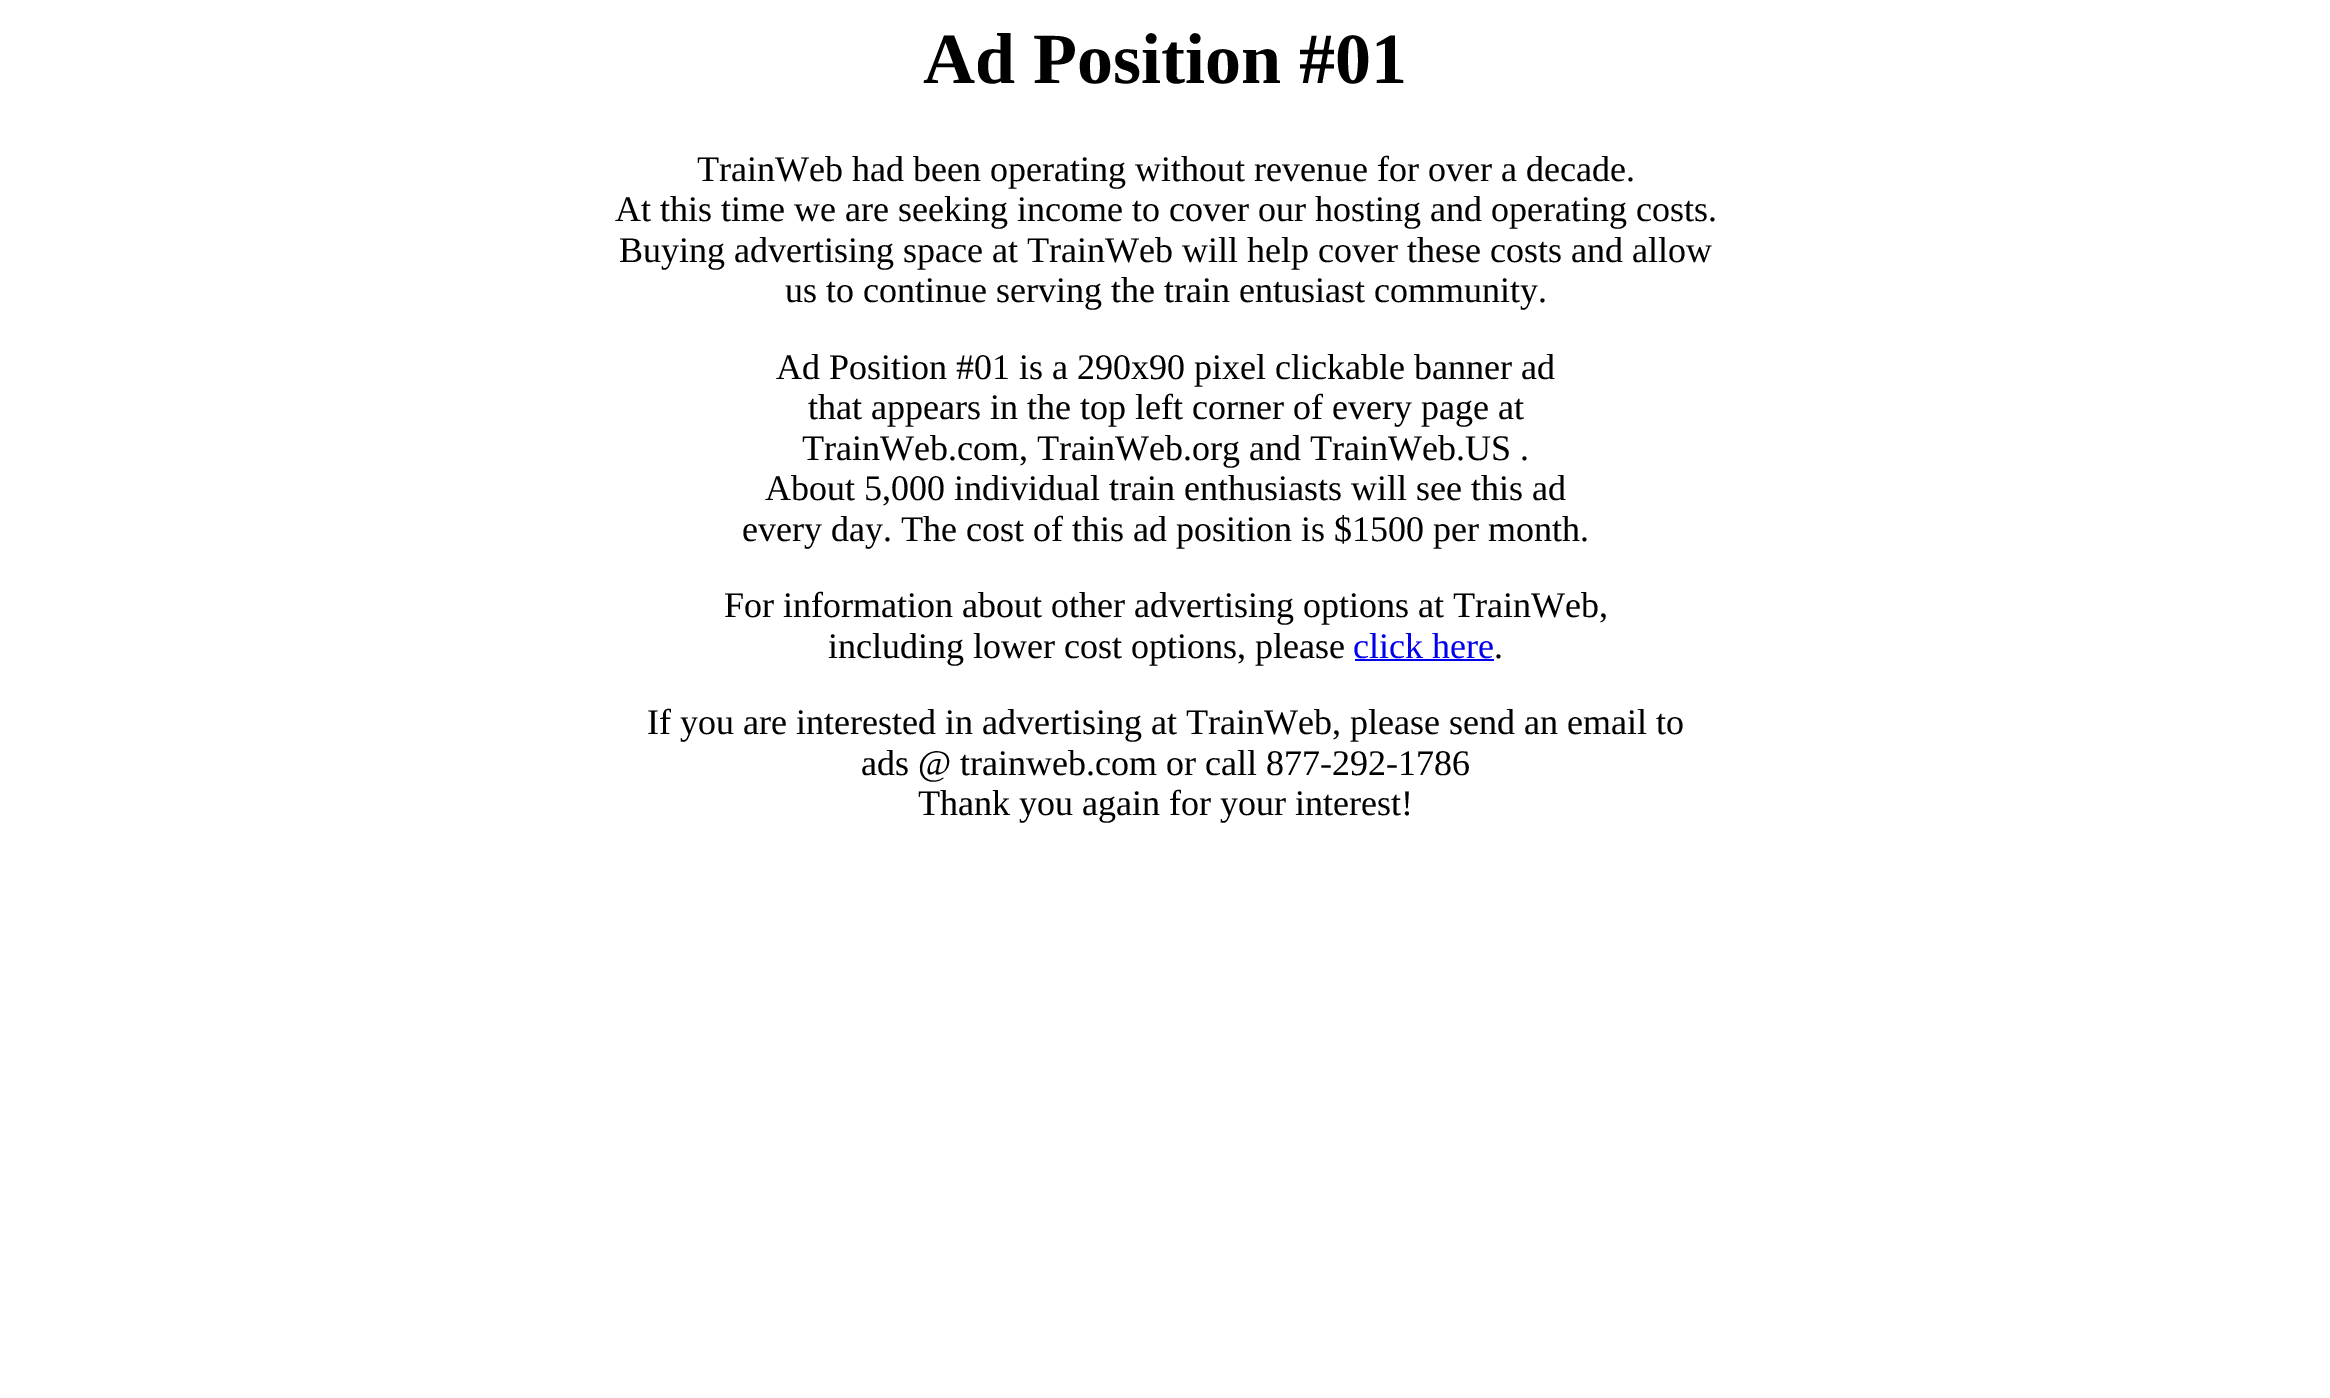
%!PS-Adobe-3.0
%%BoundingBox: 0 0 2330 1398
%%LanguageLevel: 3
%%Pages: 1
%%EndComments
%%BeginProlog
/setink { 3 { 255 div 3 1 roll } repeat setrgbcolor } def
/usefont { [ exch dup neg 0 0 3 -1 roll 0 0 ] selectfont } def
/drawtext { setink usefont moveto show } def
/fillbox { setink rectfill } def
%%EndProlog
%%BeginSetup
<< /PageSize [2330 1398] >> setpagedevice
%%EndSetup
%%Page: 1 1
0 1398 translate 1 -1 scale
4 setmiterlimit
0 0 2330 1398 255 255 255 fillbox
(Ad Position #01) 923 83 /LiberationSerif-Bold 72 0 0 0 drawtext
(TrainWeb had been operating without revenue for over a decade.) 697 181 /LiberationSerif-Regular 36 0 0 0 drawtext
(At this time we are seeking income to cover our hosting and operating costs.) 615 221 /LiberationSerif-Regular 36 0 0 0 drawtext
(Buying advertising space at TrainWeb will help cover these costs and allow) 619 262 /LiberationSerif-Regular 36 0 0 0 drawtext
(us to continue serving the train entusiast community.) 785 302 /LiberationSerif-Regular 36 0 0 0 drawtext
(Ad Position #01 is a 290x90 pixel clickable banner ad) 776 379 /LiberationSerif-Regular 36 0 0 0 drawtext
(that appears in the top left corner of every page at) 808 419 /LiberationSerif-Regular 36 0 0 0 drawtext
(TrainWeb.com, TrainWeb.org and TrainWeb.US .) 802 460 /LiberationSerif-Regular 36 0 0 0 drawtext
(About 5,000 individual train enthusiasts will see this ad) 765 500 /LiberationSerif-Regular 36 0 0 0 drawtext
(every day. The cost of this ad position is $1500 per month.) 742 541 /LiberationSerif-Regular 36 0 0 0 drawtext
(For information about other advertising options at TrainWeb,) 724 617 /LiberationSerif-Regular 36 0 0 0 drawtext
(including lower cost options, please) 828 658 /LiberationSerif-Regular 36 0 0 0 drawtext
(click here) 1353 658 /LiberationSerif-Regular 36 0 0 238 drawtext
1355 659 139 2 0 0 238 fillbox
(.) 1494 658 /LiberationSerif-Regular 36 0 0 0 drawtext
(If you are interested in advertising at TrainWeb, please send an email to) 647 734 /LiberationSerif-Regular 36 0 0 0 drawtext
(ads @ trainweb.com or call 877-292-1786) 861 775 /LiberationSerif-Regular 36 0 0 0 drawtext
(Thank you again for your interest!) 918 815 /LiberationSerif-Regular 36 0 0 0 drawtext
showpage
%%EOF
